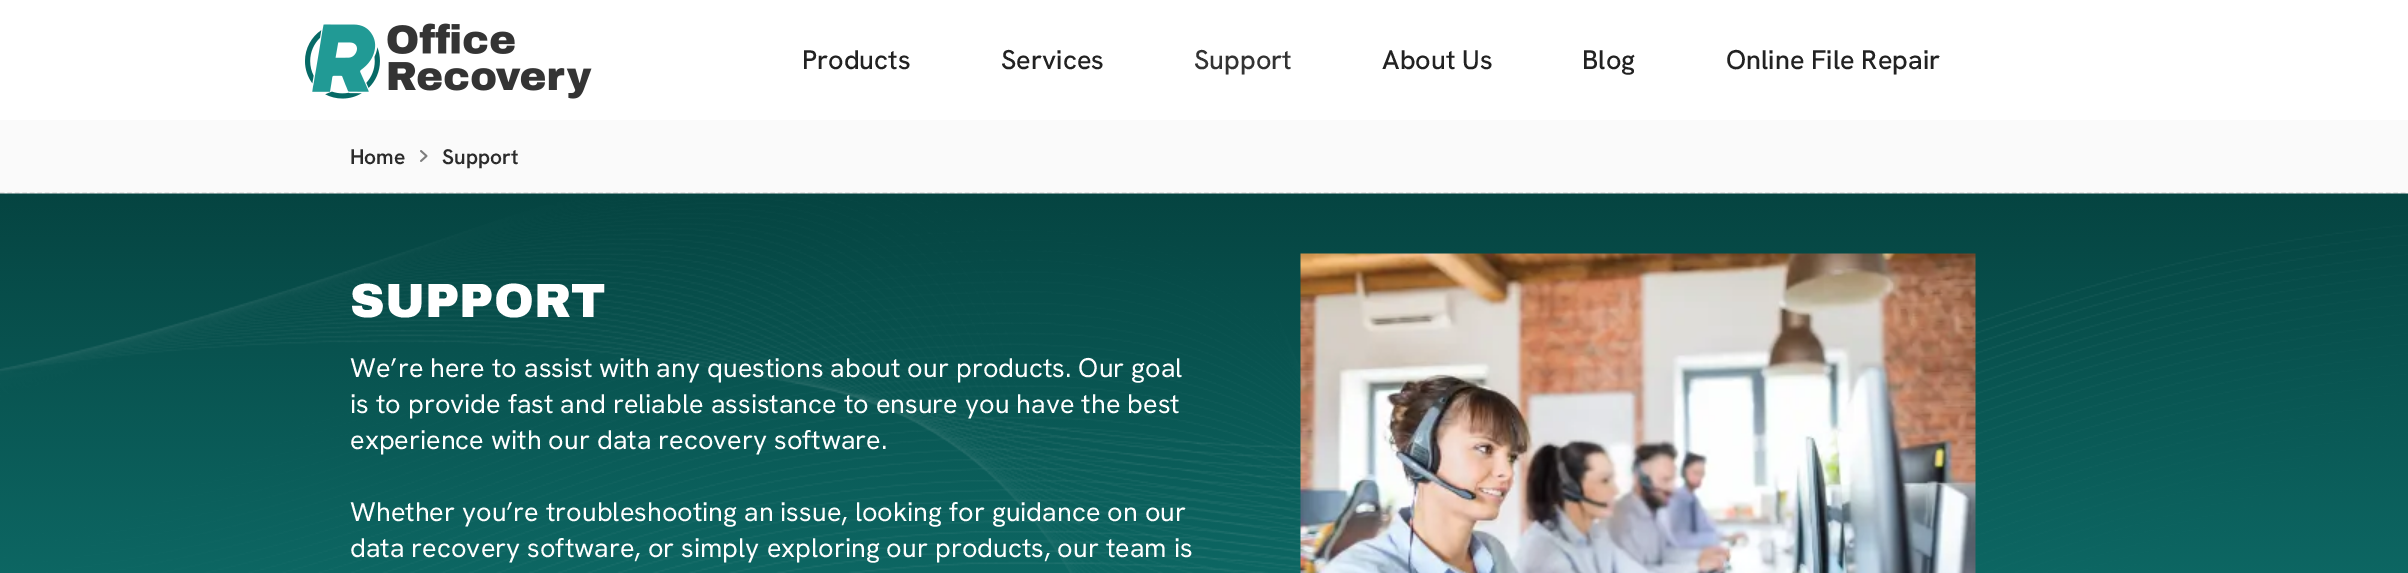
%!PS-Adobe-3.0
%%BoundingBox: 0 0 2408 573
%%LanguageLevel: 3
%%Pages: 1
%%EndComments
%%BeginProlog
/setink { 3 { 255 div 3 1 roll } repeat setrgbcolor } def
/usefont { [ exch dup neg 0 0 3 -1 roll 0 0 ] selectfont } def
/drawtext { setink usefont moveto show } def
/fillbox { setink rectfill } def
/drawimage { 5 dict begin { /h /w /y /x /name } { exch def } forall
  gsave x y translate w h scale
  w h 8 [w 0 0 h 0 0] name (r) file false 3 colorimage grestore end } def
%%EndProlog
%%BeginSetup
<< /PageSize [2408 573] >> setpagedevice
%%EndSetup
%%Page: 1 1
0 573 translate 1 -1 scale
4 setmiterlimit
0 0 2408 573 255 255 255 fillbox
(assets/img1.rgb) 305 23 287 76 drawimage
(Products) 802 69 /HankenGrotesk-Medium 27 34 34 34 drawtext
(Services) 1001 69 /HankenGrotesk-Medium 27 34 34 34 drawtext
(Support) 1194 69 /HankenGrotesk-Medium 27 51 51 51 drawtext
(About Us) 1382 69 /HankenGrotesk-Medium 27 34 34 34 drawtext
(Blog) 1582 69 /HankenGrotesk-Medium 27 34 34 34 drawtext
(Online File Repair) 1726 69 /HankenGrotesk-Medium 27 34 34 34 drawtext
0 120 2408 74 250 250 250 fillbox
226 223 223 setink
1.5 setlinewidth
[4.5 2.98] 0 setdash
0 193 moveto 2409 193 lineto stroke
(Home) 350 164 /HankenGrotesk-SemiBold 21 43 43 43 drawtext
(assets/img2.rgb) 420 150 8 12 drawimage
(Support) 442 164 /HankenGrotesk-SemiBold 21 43 43 43 drawtext
(assets/img3.rgb) 0 193 2408 380 drawimage
(SUPPORT) 350 317 /ArchivoBlack-Black 48 255 255 255 drawtext
(We’re here to assist with any questions about our products. Our goal) 350 377 /HankenGrotesk-Regular 27 255 255 255 drawtext
(is to provide fast and reliable assistance to ensure you have the best) 350 413 /HankenGrotesk-Regular 27 255 255 255 drawtext
(experience with our data recovery software.) 350 449 /HankenGrotesk-Regular 27 255 255 255 drawtext
(Whether you’re troubleshooting an issue, looking for guidance on our) 350 521 /HankenGrotesk-Regular 27 255 255 255 drawtext
(data recovery software, or simply exploring our products, our team is) 350 557 /HankenGrotesk-Regular 27 255 255 255 drawtext
(assets/img4.rgb) 1300 253 676 320 drawimage
showpage
%%EOF
